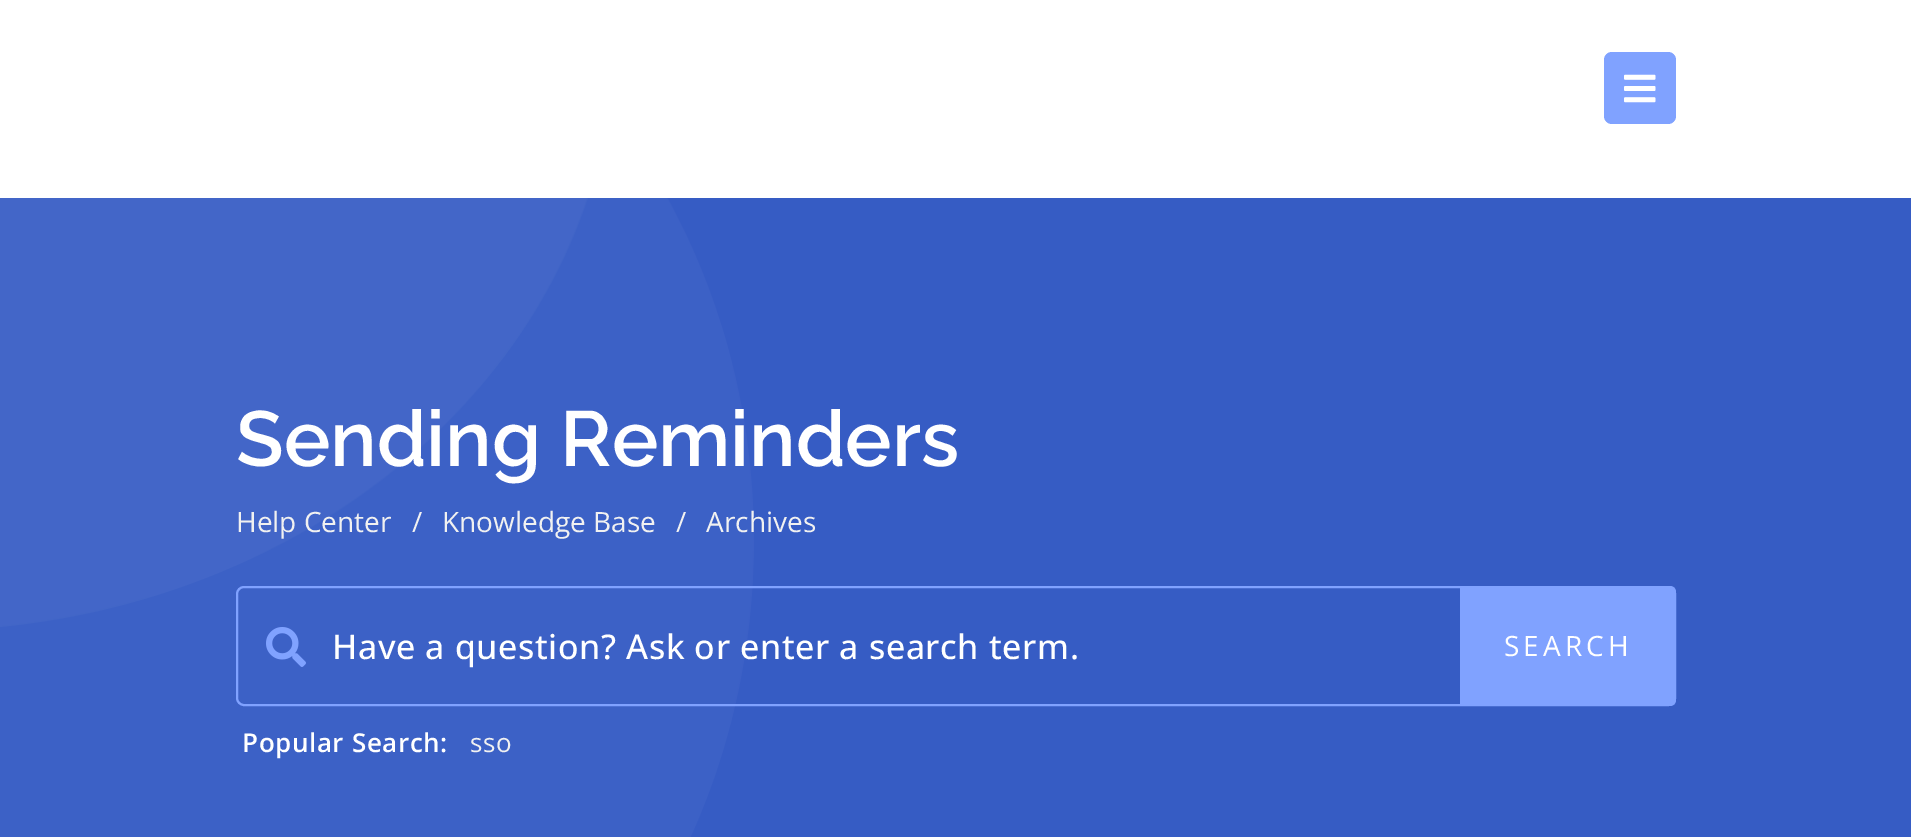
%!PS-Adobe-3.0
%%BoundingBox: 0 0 1911 837
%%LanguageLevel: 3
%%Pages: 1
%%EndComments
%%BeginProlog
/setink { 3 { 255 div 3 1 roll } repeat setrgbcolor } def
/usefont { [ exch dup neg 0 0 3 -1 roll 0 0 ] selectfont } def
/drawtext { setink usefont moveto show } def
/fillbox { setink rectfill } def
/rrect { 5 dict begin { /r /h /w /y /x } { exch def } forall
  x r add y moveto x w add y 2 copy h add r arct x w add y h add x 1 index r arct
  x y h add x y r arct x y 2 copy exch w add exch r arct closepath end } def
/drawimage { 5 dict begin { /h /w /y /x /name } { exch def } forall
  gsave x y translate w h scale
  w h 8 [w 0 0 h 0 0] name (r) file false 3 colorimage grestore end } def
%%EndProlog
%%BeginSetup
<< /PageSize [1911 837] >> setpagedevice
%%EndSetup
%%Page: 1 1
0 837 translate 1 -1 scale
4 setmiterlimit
0 0 1911 837 255 255 255 fillbox
128 162 255 setink
1604 52 72 72 8 rrect fill
(assets/img1.rgb) 1624 74 32 29 drawimage
0 198 1911 639 54 92 196 fillbox
(assets/img2.rgb) 0 198 754 639 drawimage
(Sending Reminders) 236 466 /Raleway-SemiBold 78 255 255 255 drawtext
(Help Center) 236 532 /OpenSans-Regular 28 241 241 241 drawtext
(/) 412 532 /OpenSans-Regular 28 241 241 241 drawtext
(Knowledge Base) 442 532 /OpenSans-Regular 28 241 241 241 drawtext
(/) 676 532 /OpenSans-Regular 28 241 241 241 drawtext
(Archives) 706 532 /OpenSans-Regular 28 241 241 241 drawtext
128 162 255 setink
2 setlinewidth
237 587 1438 118 7 rrect stroke
(assets/img3.rgb) 266 627 40 40 drawimage
/OpenSans-Medium 34 usefont
255 255 255 setink
332 659 moveto 0.6 0 (Have a question? Ask or enter a search term.) ashow
128 162 255 setink
1460 586 moveto 1670 586 lineto 1673.5 586 1676 588.5 1676 592 curveto 1676 700 lineto 1676 703.5 1673.5 706 1670 706 curveto 1460 706 lineto closepath fill
/OpenSans-Regular 28 usefont
255 255 255 setink
1504 656 moveto 4 0 (SEARCH) ashow
/OpenSans-SemiBold 26 usefont
242 752 moveto 0.6 0 (Popular Search:) ashow
/OpenSans-Regular 26 usefont
241 241 241 setink
470 752 moveto 0.6 0 (sso) ashow
showpage
%%EOF
